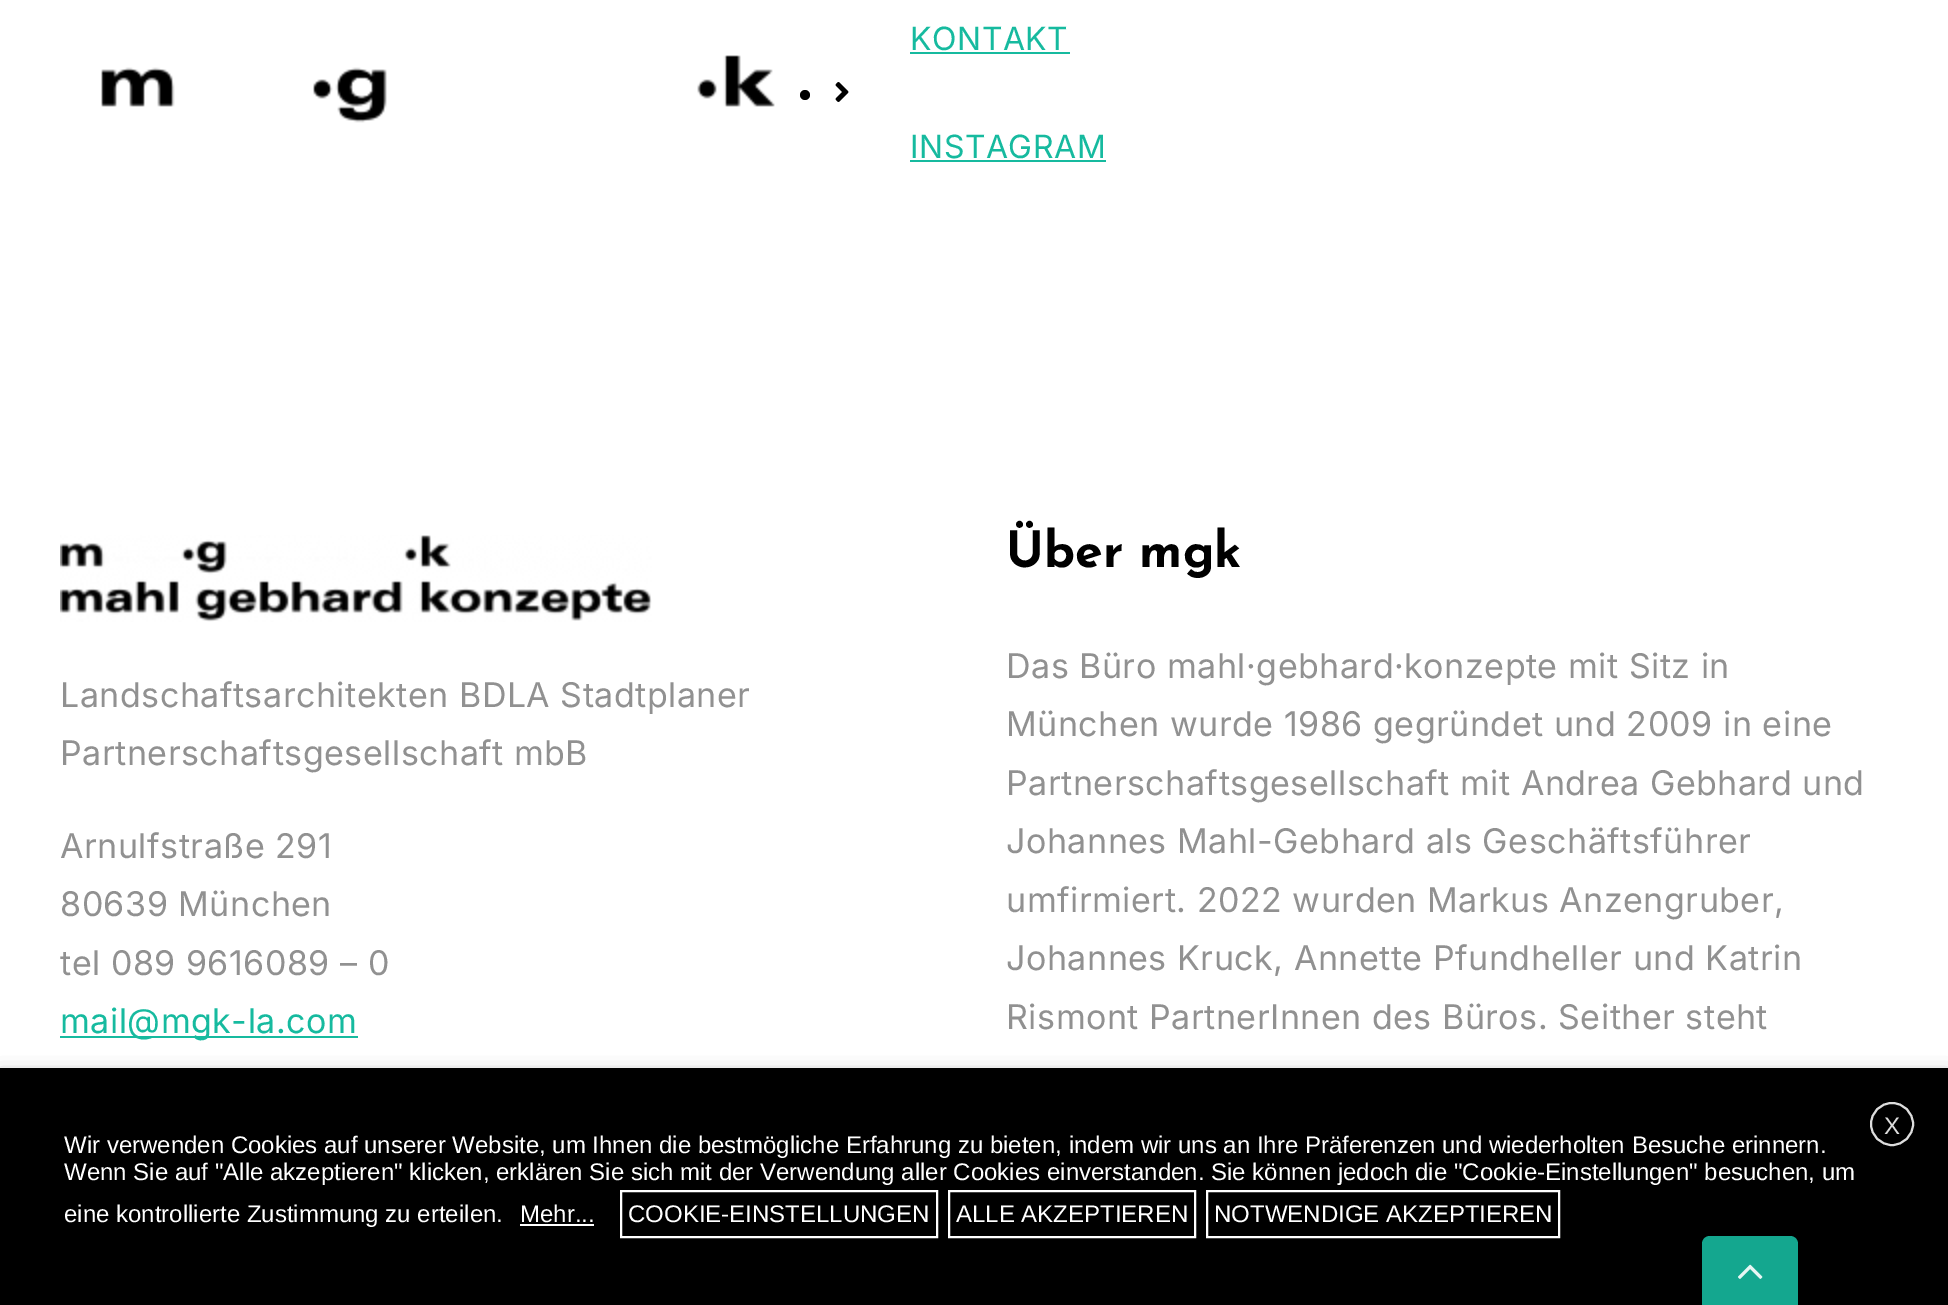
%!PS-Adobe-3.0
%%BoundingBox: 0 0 1948 1305
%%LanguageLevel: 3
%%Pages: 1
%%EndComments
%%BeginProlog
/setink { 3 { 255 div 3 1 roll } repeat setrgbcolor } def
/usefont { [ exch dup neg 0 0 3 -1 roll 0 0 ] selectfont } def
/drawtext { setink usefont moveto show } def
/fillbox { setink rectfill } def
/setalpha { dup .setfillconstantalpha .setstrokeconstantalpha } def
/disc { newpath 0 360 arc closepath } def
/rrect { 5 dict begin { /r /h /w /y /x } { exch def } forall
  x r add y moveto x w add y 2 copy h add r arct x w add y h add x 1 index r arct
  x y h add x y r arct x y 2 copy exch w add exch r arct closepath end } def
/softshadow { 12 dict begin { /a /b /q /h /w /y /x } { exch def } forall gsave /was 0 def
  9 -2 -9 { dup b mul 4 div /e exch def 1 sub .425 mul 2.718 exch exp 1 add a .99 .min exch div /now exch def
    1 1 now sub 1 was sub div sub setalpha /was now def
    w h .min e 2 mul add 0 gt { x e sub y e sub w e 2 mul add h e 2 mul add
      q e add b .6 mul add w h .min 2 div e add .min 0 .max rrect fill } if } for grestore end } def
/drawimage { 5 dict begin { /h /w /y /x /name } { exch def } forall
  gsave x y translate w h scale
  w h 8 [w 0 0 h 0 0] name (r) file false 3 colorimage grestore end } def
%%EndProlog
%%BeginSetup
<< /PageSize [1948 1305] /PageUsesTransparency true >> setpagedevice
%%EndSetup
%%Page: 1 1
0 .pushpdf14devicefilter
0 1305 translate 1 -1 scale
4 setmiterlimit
0 0 1948 1305 255 255 255 fillbox
(assets/img1.rgb) 101 55 674 68 drawimage
/Inter-Regular 32 usefont
22 186 159 setink
910 50 moveto 0.5 0 (KONTAKT) ashow
910 52 160 2 22 186 159 fillbox
0 0 0 setink
805 95 5 disc fill
(assets/img2.rgb) 835 82 14 20 drawimage
22 186 159 setink
910 158 moveto 0.5 0 (INSTAGRAM) ashow
910 160 196 2 22 186 159 fillbox
(assets/img3.rgb) 60 535 592 87 drawimage
/Inter-Regular 34 usefont
145 145 145 setink
60 707 moveto 0.5 0 (Landschaftsarchitekten BDLA Stadtplaner) ashow
60 765 moveto 0.5 0 (Partnerschaftsgesellschaft mbB) ashow
60 858 moveto 0.5 0 (Arnulfstraße 291) ashow
60 916 moveto 0.5 0 (80639 München) ashow
60 975 moveto 0.5 0 (tel 089 9616089 – 0) ashow
60 1036 298 2 22 186 159 fillbox
60 1033 moveto 0.5 0 (mail@mgk-la.com) ashow
(Über mgk) 1006 567 /JosefinSans-Bold 50 0 0 0 drawtext
/Inter-Regular 34 usefont
145 145 145 setink
1006 678 moveto 0.5 0 (Das Büro mahl·gebhard·konzepte mit Sitz in) ashow
1006 736 moveto 0.5 0 (München wurde 1986 gegründet und 2009 in eine) ashow
1006 795 moveto 0.5 0 (Partnerschaftsgesellschaft mit Andrea Gebhard und) ashow
1006 853 moveto 0.5 0 (Johannes Mahl-Gebhard als Geschäftsführer) ashow
1006 912 moveto 0.5 0 (umfirmiert. 2022 wurden Markus Anzengruber,) ashow
1006 970 moveto 0.5 0 (Johannes Kruck, Annette Pfundheller und Katrin) ashow
1006 1029 moveto 0.5 0 (Rismont PartnerInnen des Büros. Seither steht) ashow
0 0 0 setink
0 1078 1948 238 0 10 0.5 softshadow
0 1068 1948 237 0 0 0 fillbox
221 221 221 setink
2 setlinewidth
1892 1124 21 disc stroke
(X) 1884 1134 /LiberationSans-Regular 24 221 221 221 drawtext
(Wir verwenden Cookies auf unserer Website, um Ihnen die bestmögliche Erfahrung zu bieten, indem wir uns an Ihre Präferenzen und wiederholten Besuche erinnern.) 64 1153 /LiberationSans-Regular 24 255 255 255 drawtext
(Wenn Sie auf "Alle akzeptieren" klicken, erklären Sie sich mit der Verwendung aller Cookies einverstanden. Sie können jedoch die "Cookie-Einstellungen" besuchen, um) 64 1180 /LiberationSans-Regular 24 255 255 255 drawtext
(eine kontrollierte Zustimmung zu erteilen.) 64 1222 /LiberationSans-Regular 24 255 255 255 drawtext
(Mehr...) 520 1222 /LiberationSans-Regular 24 255 255 255 drawtext
520 1224 74 2 255 255 255 fillbox
621 1191 316 46 rectstroke
(COOKIE-EINSTELLUNGEN) 628 1222 /LiberationSans-Regular 24 255 255 255 drawtext
949 1191 246 46 rectstroke
(ALLE AKZEPTIEREN) 956 1222 /LiberationSans-Regular 24 255 255 255 drawtext
1207 1191 352 46 rectstroke
(NOTWENDIGE AKZEPTIEREN) 1214 1222 /LiberationSans-Regular 24 255 255 255 drawtext
20 167 143 setink
1710 1236 moveto 1790 1236 lineto 1794.5 1236 1798 1239.5 1798 1244 curveto 1798 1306 lineto 1702 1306 lineto 1702 1244 lineto 1702 1239.5 1705.5 1236 1710 1236 curveto closepath fill
(assets/img4.rgb) 1738 1264 25 15 drawimage
.poppdf14devicefilter showpage
%%EOF
